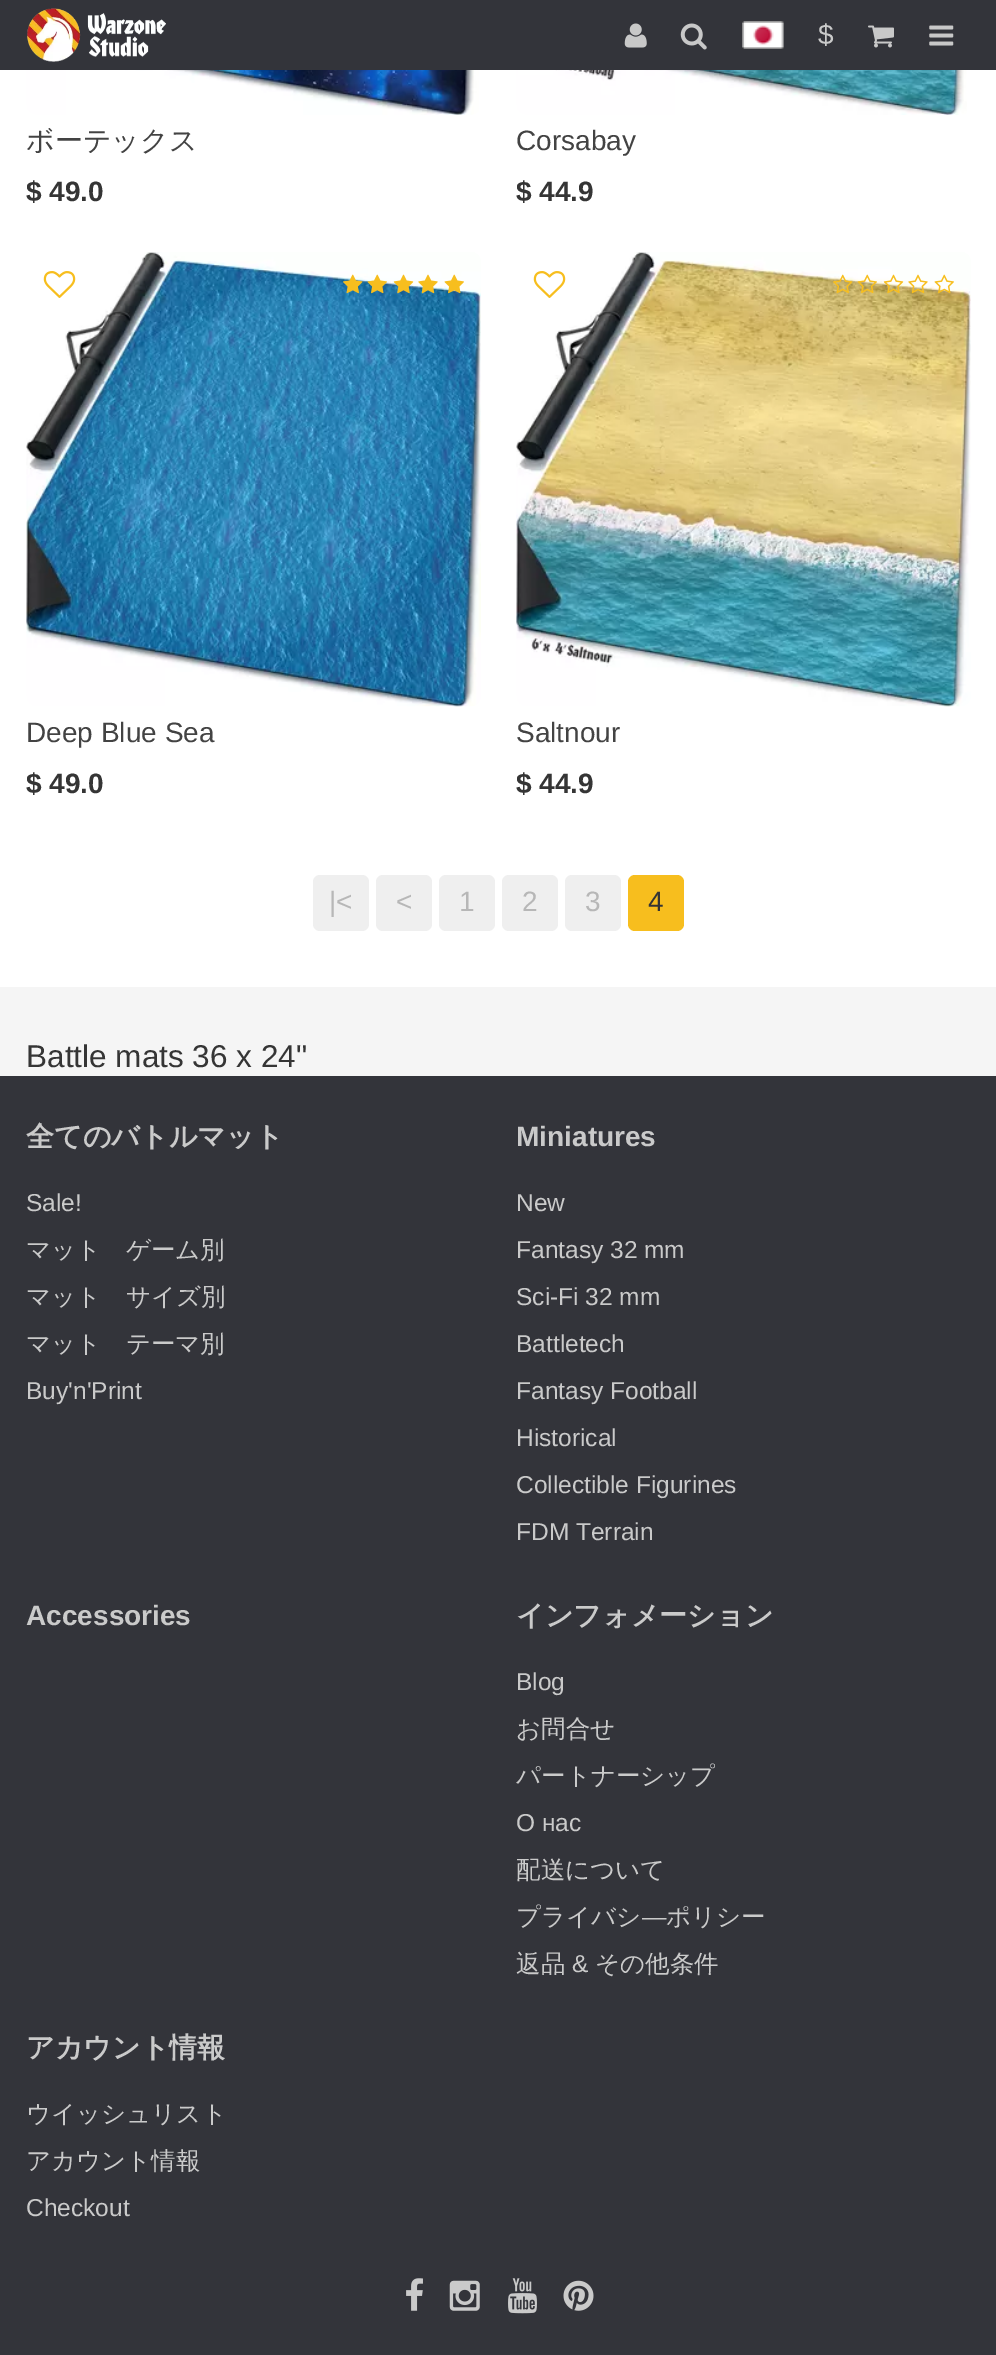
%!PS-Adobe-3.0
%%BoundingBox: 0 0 996 2355
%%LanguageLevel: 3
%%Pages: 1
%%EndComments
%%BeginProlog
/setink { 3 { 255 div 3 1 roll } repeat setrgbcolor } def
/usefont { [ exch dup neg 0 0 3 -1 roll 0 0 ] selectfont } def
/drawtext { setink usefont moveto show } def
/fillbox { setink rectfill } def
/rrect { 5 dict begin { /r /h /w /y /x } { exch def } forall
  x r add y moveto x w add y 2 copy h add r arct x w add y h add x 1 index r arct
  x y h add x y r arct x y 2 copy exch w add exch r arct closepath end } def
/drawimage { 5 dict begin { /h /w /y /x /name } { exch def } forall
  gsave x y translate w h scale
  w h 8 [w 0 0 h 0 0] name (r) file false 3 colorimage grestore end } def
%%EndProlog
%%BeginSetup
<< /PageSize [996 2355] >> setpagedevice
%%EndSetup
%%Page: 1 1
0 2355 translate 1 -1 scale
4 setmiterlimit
0 0 996 2355 255 255 255 fillbox
0 0 996 70 51 52 58 fillbox
(assets/img1.rgb) 27 8 139 54 drawimage
(assets/img2.rgb) 624 23 23 25 drawimage
(assets/img3.rgb) 680 23 27 27 drawimage
(assets/img4.rgb) 742 21 42 28 drawimage
($) 818 44 /LiberationSans-Regular 28 202 202 202 drawtext
(assets/img5.rgb) 868 25 26 23 drawimage
(assets/img6.rgb) 929 25 25 21 drawimage
(assets/img7.rgb) 26 70 453 45 drawimage
(ボーテックス) 26 150 /WenQuanYiZenHei-Medium 28 67 67 67 drawtext
($ 49.0) 26 201 /LiberationSans-Bold 28 53 53 53 drawtext
(assets/img8.rgb) 516 70 451 45 drawimage
(Corsabay) 516 150 /LiberationSans-Regular 28 67 67 67 drawtext
($ 44.9) 516 201 /LiberationSans-Bold 28 53 53 53 drawtext
(assets/img9.rgb) 26 252 455 455 drawimage
(assets/img10.rgb) 43 271 33 27 drawimage
(assets/img11.rgb) 343 274 20 20 drawimage
(assets/img12.rgb) 367 274 20 20 drawimage
(assets/img13.rgb) 393 274 21 20 drawimage
(assets/img14.rgb) 418 274 20 20 drawimage
(assets/img15.rgb) 444 274 20 20 drawimage
(Deep Blue Sea) 26 742 /LiberationSans-Regular 28 67 67 67 drawtext
($ 49.0) 26 793 /LiberationSans-Bold 28 53 53 53 drawtext
(assets/img16.rgb) 516 252 455 455 drawimage
(assets/img10.rgb) 533 271 33 27 drawimage
(assets/img17.rgb) 833 274 20 20 drawimage
(assets/img18.rgb) 857 274 20 20 drawimage
(assets/img19.rgb) 883 274 21 20 drawimage
(assets/img20.rgb) 908 274 20 20 drawimage
(assets/img21.rgb) 934 274 20 20 drawimage
(Saltnour) 516 742 /LiberationSans-Regular 28 67 67 67 drawtext
($ 44.9) 516 793 /LiberationSans-Bold 28 53 53 53 drawtext
239 239 239 setink
313 875 56 56 7 rrect fill
(|<) 329 911 /LiberationSans-Regular 28 183 183 183 drawtext
239 239 239 setink
376 875 56 56 7 rrect fill
(<) 396 911 /LiberationSans-Regular 28 183 183 183 drawtext
239 239 239 setink
439 875 56 56 7 rrect fill
(1) 459 911 /LiberationSans-Regular 28 183 183 183 drawtext
239 239 239 setink
502 875 56 56 7 rrect fill
(2) 522 911 /LiberationSans-Regular 28 183 183 183 drawtext
239 239 239 setink
565 875 56 56 7 rrect fill
(3) 585 911 /LiberationSans-Regular 28 183 183 183 drawtext
247 190 30 setink
628 875 56 56 7 rrect fill
(4) 648 911 /LiberationSans-Regular 28 53 53 53 drawtext
0 987 996 89 245 245 245 fillbox
(Battle mats 36 x 24") 26 1067 /LiberationSans-Regular 31.5 53 53 53 drawtext
0 1076 996 1279 51 52 58 fillbox
(全てのバトルマット) 26 1146 /WenQuanYiZenHei-Bold 28 202 202 202 drawtext
(Sale!) 26 1211 /LiberationSans-Regular 24.5 202 202 202 drawtext
(マット　ゲーム別) 26 1258 /WenQuanYiZenHei-Medium 24.5 202 202 202 drawtext
(マット　サイズ別) 26 1305 /WenQuanYiZenHei-Medium 24.5 202 202 202 drawtext
(マット　テーマ別) 26 1352 /WenQuanYiZenHei-Medium 24.5 202 202 202 drawtext
(Buy'n'Print) 26 1399 /LiberationSans-Regular 24.5 202 202 202 drawtext
(Miniatures) 516 1146 /LiberationSans-Bold 28 202 202 202 drawtext
(New) 516 1211 /LiberationSans-Regular 24.5 202 202 202 drawtext
(Fantasy 32 mm) 516 1258 /LiberationSans-Regular 24.5 202 202 202 drawtext
(Sci-Fi 32 mm) 516 1305 /LiberationSans-Regular 24.5 202 202 202 drawtext
(Battletech) 516 1352 /LiberationSans-Regular 24.5 202 202 202 drawtext
(Fantasy Football) 516 1399 /LiberationSans-Regular 24.5 202 202 202 drawtext
(Historical) 516 1446 /LiberationSans-Regular 24.5 202 202 202 drawtext
(Collectible Figurines) 516 1493 /LiberationSans-Regular 24.5 202 202 202 drawtext
(FDM Terrain) 516 1540 /LiberationSans-Regular 24.5 202 202 202 drawtext
(Accessories) 26 1625 /LiberationSans-Bold 28 202 202 202 drawtext
(インフォメーション) 516 1625 /WenQuanYiZenHei-Bold 28 202 202 202 drawtext
(Blog) 516 1690 /LiberationSans-Regular 24.5 202 202 202 drawtext
(お問合せ) 516 1737 /WenQuanYiZenHei-Medium 24.5 202 202 202 drawtext
(パートナーシップ) 516 1784 /WenQuanYiZenHei-Medium 24.5 202 202 202 drawtext
(О нас) 516 1831 /LiberationSans-Regular 24.5 202 202 202 drawtext
(配送について) 516 1878 /WenQuanYiZenHei-Medium 24.5 202 202 202 drawtext
(プライバシ) 516 1925 /WenQuanYiZenHei-Medium 24.5 202 202 202 drawtext
(―) 642 1925 /LiberationSans-Regular 24.5 202 202 202 drawtext
(ポリシー) 666 1925 /WenQuanYiZenHei-Medium 24.5 202 202 202 drawtext
(返品) 516 1972 /WenQuanYiZenHei-Medium 24.5 202 202 202 drawtext
(&) 572 1972 /LiberationSans-Regular 24.5 202 202 202 drawtext
(その他条件) 595 1972 /WenQuanYiZenHei-Medium 24.5 202 202 202 drawtext
(アカウント情報) 26 2057 /WenQuanYiZenHei-Bold 28 202 202 202 drawtext
(ウイッシュリスト) 26 2122 /WenQuanYiZenHei-Medium 24.5 202 202 202 drawtext
(アカウント情報) 26 2169 /WenQuanYiZenHei-Medium 24.5 202 202 202 drawtext
(Checkout) 26 2216 /LiberationSans-Regular 24.5 202 202 202 drawtext
(assets/img22.rgb) 406 2278 17 33 drawimage
(assets/img23.rgb) 449 2280 31 31 drawimage
(assets/img24.rgb) 508 2278 29 36 drawimage
(assets/img25.rgb) 563 2280 31 31 drawimage
showpage
%%EOF
